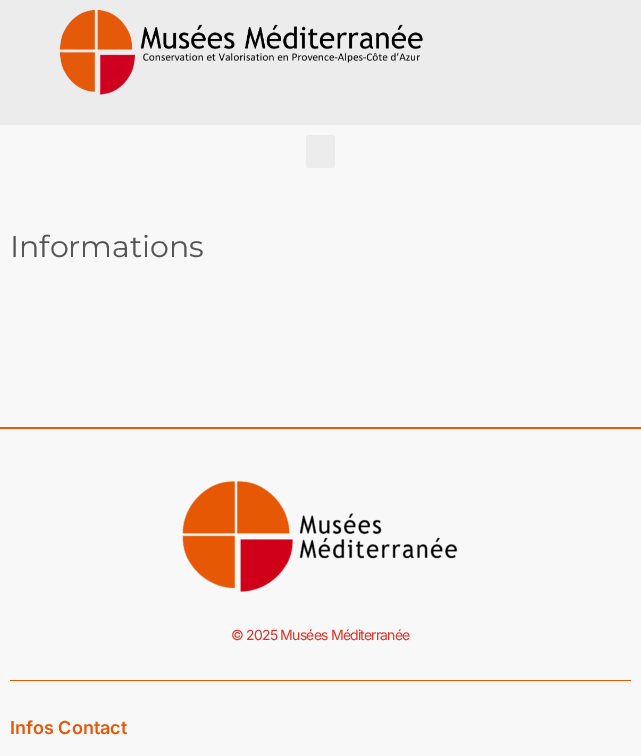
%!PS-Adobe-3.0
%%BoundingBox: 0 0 641 756
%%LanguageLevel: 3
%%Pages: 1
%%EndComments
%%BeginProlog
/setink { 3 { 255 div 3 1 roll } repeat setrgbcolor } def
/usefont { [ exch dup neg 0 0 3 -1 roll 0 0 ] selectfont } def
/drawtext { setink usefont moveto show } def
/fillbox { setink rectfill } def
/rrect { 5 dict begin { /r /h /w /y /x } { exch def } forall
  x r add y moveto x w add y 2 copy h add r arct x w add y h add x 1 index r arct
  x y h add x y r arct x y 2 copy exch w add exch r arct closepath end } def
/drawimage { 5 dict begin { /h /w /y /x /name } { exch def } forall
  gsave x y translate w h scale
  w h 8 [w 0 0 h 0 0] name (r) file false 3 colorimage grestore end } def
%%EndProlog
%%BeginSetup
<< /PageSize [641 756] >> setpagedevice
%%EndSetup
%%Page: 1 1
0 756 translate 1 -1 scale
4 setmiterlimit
0 0 641 756 248 248 248 fillbox
0 0 641 125 236 236 236 fillbox
(assets/img1.rgb) 59 10 364 85 drawimage
306 135 29 33 3 rrect fill
(Informations) 10 257 /Montserrat-Regular 30 85 85 85 drawtext
0 427 641 2 229 89 11 fillbox
(assets/img2.rgb) 182 481 276 111 drawimage
/Inter-Regular 14 usefont
226 49 37 setink
231 640 moveto -0.8 0 (© 2025 Musées Méditerranée) ashow
10 680 621 1 229 89 11 fillbox
(Infos Contact) 10 734 /Inter-SemiBold 18 229 89 11 drawtext
showpage
%%EOF
